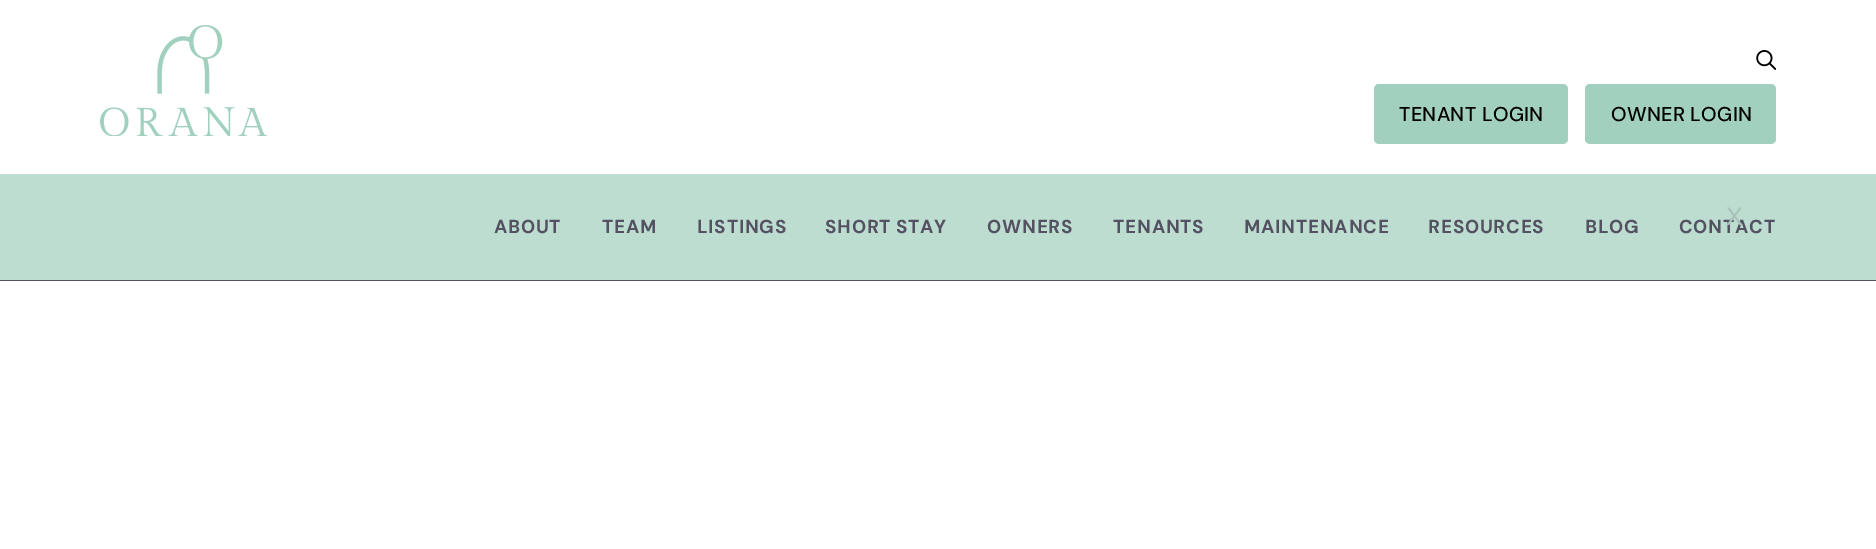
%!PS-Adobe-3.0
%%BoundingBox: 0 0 1876 549
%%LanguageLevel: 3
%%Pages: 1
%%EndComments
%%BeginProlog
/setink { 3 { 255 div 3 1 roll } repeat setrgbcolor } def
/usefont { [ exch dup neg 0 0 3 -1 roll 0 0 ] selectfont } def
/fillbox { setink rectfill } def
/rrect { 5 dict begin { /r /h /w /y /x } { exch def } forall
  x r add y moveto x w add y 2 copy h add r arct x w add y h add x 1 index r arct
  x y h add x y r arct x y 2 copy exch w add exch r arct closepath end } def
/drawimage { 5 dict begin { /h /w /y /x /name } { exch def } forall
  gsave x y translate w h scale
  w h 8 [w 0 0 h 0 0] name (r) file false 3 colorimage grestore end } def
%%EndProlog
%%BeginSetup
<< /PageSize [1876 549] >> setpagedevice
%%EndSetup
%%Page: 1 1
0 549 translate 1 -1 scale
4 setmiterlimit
0 0 1876 549 255 255 255 fillbox
(assets/img1.rgb) 100 25 168 111 drawimage
(assets/img2.rgb) 1756 50 20 20 drawimage
161 209 190 setink
1374 84 194 60 5 rrect fill
/DMSans-Medium 20 usefont
0 0 0 setink
1399 121 moveto 0.25 0 (TENANT LOGIN) ashow
161 209 190 setink
1585 84 191 60 5 rrect fill
0 0 0 setink
1611 121 moveto 0.25 0 (OWNER LOGIN) ashow
0 174 1876 106 188 221 208 fillbox
0 280 1876 1 84 82 98 fillbox
/DMSans-Bold 18.75 usefont
494 233 moveto 0.75 0 (ABOUT) ashow
602 233 moveto 0.75 0 (TEAM) ashow
697 233 moveto 0.75 0 (LISTINGS) ashow
825 233 moveto -1 0 32 0.75 0 (SHORT STAY) awidthshow
987 233 moveto 0.75 0 (OWNERS) ashow
1113 233 moveto 0.75 0 (TENANTS) ashow
1244 233 moveto 0.75 0 (MAINTENANCE) ashow
1428 233 moveto 0.75 0 (RESOURCES) ashow
1585 233 moveto 0.75 0 (BLOG) ashow
1679 233 moveto 0.75 0 (CONTACT) ashow
/Montserrat-Medium 25 usefont
169 195 187 setink
1726 225 moveto 0.25 0 (X) ashow
showpage
%%EOF
